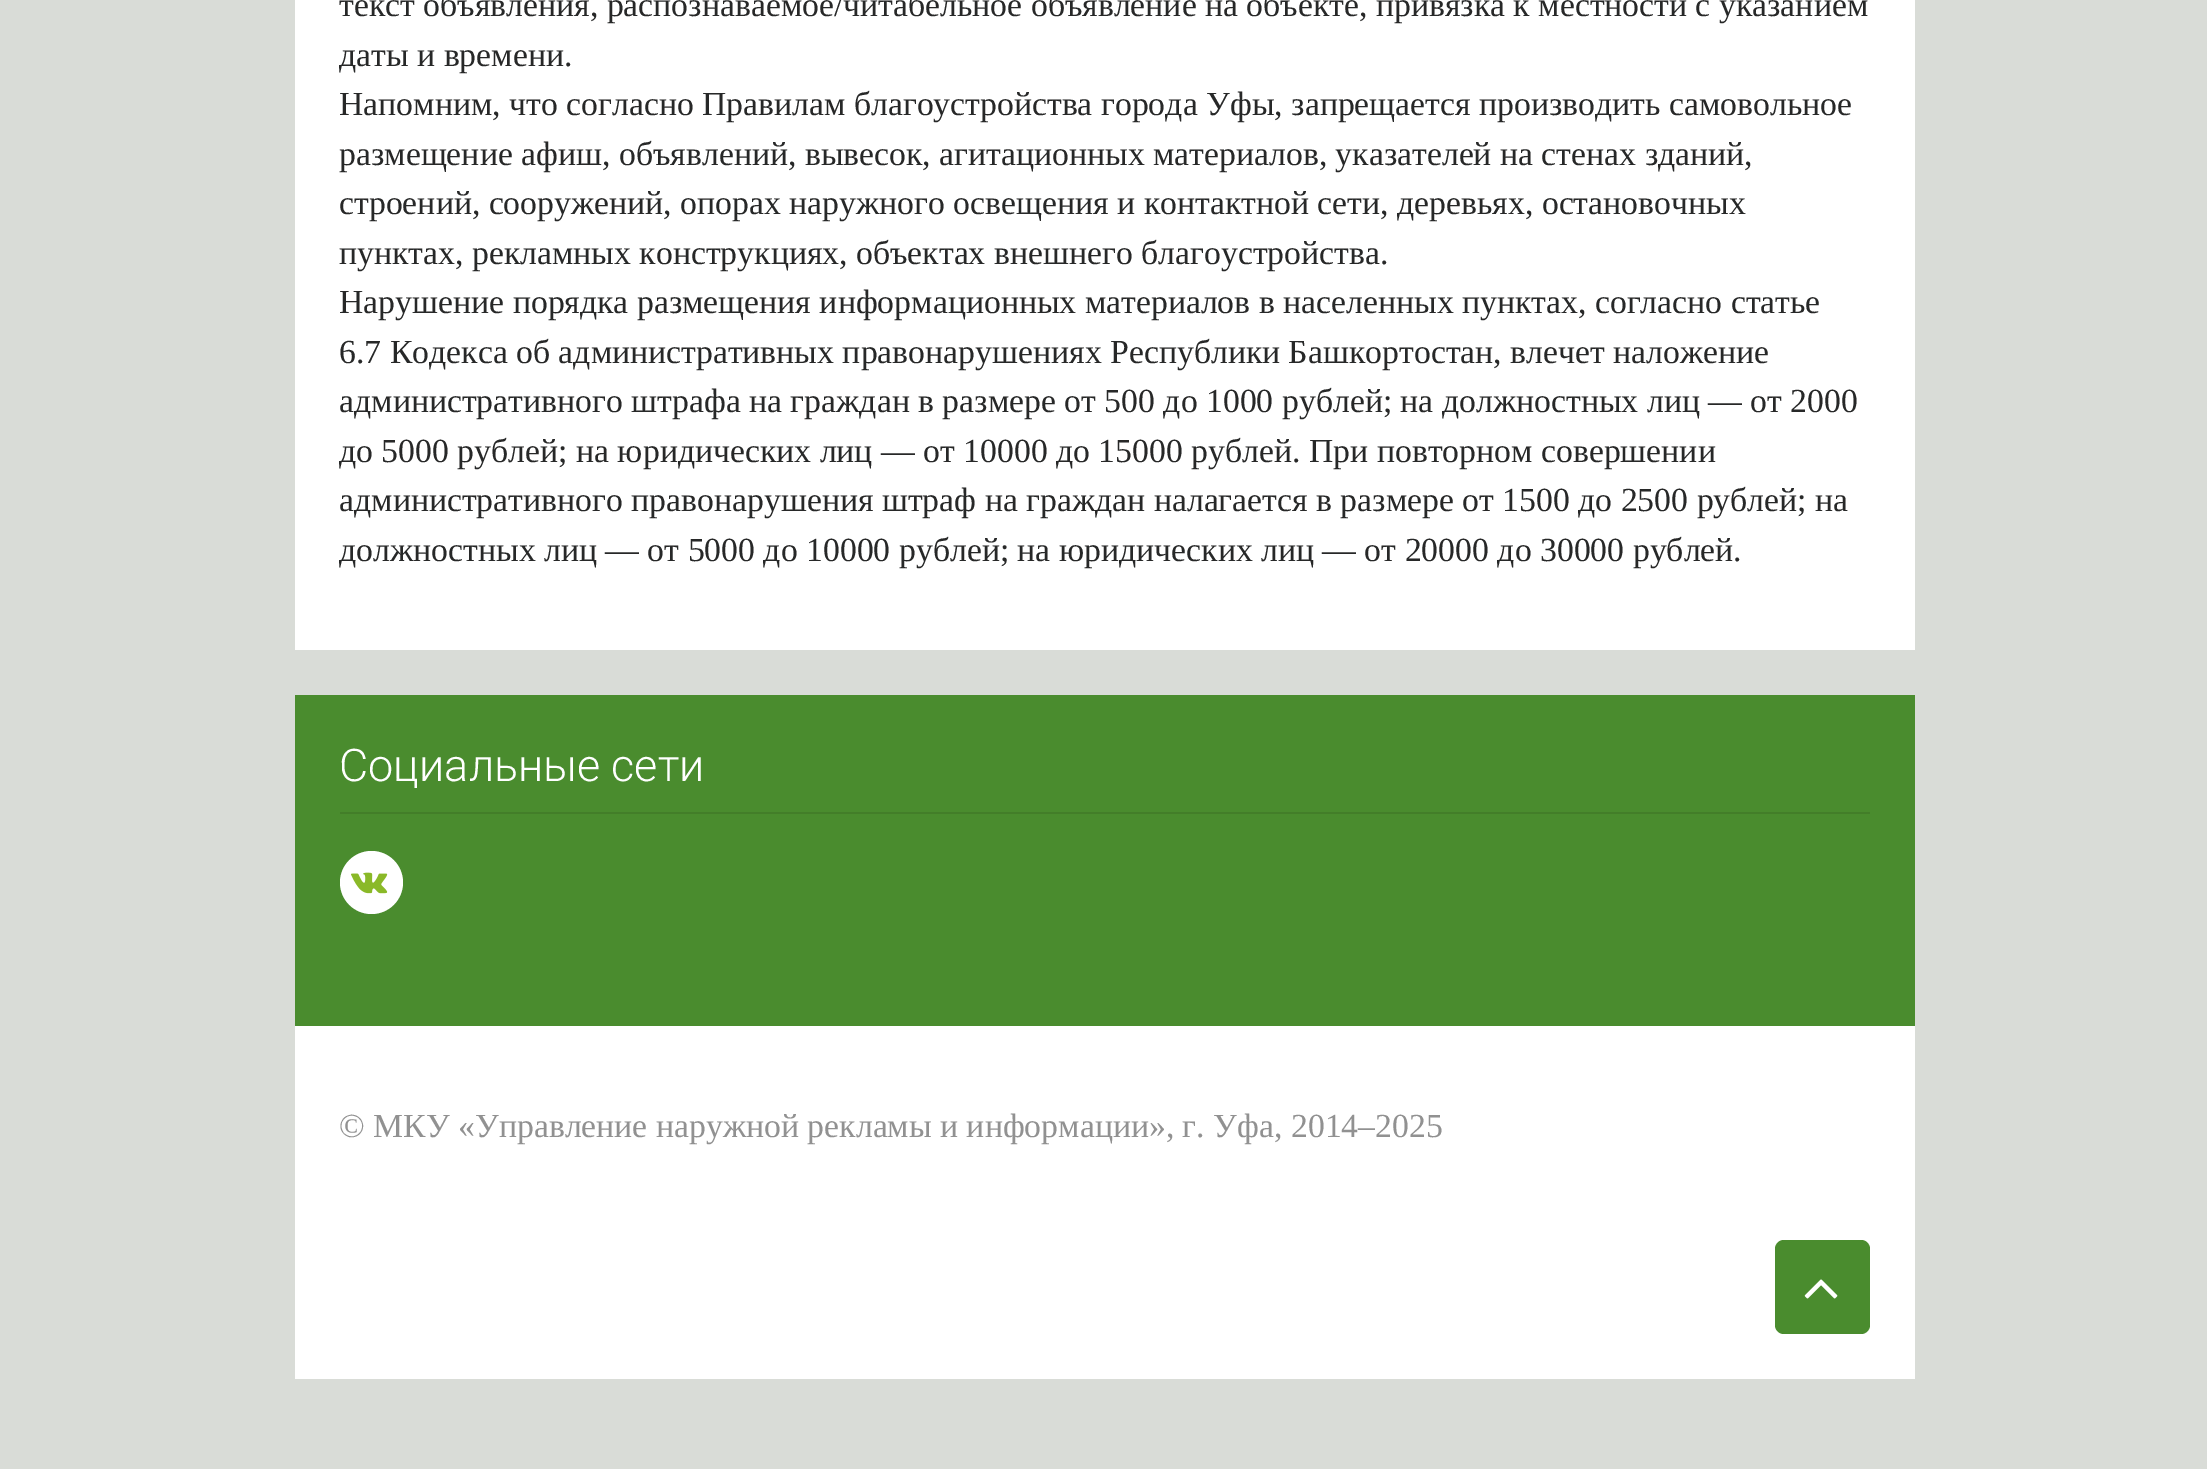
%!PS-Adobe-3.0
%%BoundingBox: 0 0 2207 1469
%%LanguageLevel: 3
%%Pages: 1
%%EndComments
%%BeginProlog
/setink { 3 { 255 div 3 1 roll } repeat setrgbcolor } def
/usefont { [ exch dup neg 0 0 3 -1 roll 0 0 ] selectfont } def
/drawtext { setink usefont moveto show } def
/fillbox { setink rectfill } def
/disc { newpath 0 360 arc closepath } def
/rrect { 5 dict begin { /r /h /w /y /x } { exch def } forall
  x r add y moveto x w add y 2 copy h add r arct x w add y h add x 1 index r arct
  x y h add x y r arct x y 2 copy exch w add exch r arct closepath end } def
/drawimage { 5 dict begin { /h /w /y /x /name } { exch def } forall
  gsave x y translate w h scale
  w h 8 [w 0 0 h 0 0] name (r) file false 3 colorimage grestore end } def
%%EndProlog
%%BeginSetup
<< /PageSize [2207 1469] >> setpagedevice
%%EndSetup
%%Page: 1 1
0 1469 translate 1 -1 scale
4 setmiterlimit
0 0 2207 1469 217 220 215 fillbox
295 0 1620 650 255 255 255 fillbox
(текст объявления, распознаваемое/читабельное объявление на объекте, привязка к местности с указанием) 339 16 /LiberationSerif-Regular 33.75 39 40 40 drawtext
(даты и времени.) 339 66 /LiberationSerif-Regular 33.75 39 40 40 drawtext
(Напомним, что согласно Правилам благоустройства города Уфы, запрещается производить самовольное) 339 115 /LiberationSerif-Regular 33.75 39 40 40 drawtext
(размещение афиш, объявлений, вывесок, агитационных материалов, указателей на стенах зданий,) 339 165 /LiberationSerif-Regular 33.75 39 40 40 drawtext
(строений, сооружений, опорах наружного освещения и контактной сети, деревьях, остановочных) 339 214 /LiberationSerif-Regular 33.75 39 40 40 drawtext
(пунктах, рекламных конструкциях, объектах внешнего благоустройства.) 339 264 /LiberationSerif-Regular 33.75 39 40 40 drawtext
(Нарушение порядка размещения информационных материалов в населенных пунктах, согласно статье) 339 313 /LiberationSerif-Regular 33.75 39 40 40 drawtext
(6.7 Кодекса об административных правонарушениях Республики Башкортостан, влечет наложение) 339 363 /LiberationSerif-Regular 33.75 39 40 40 drawtext
(административного штрафа на граждан в размере от 500 до 1000 рублей; на должностных лиц — от 2000) 339 412 /LiberationSerif-Regular 33.75 39 40 40 drawtext
(до 5000 рублей; на юридических лиц — от 10000 до 15000 рублей. При повторном совершении) 339 462 /LiberationSerif-Regular 33.75 39 40 40 drawtext
(административного правонарушения штраф на граждан налагается в размере от 1500 до 2500 рублей; на) 339 511 /LiberationSerif-Regular 33.75 39 40 40 drawtext
(должностных лиц — от 5000 до 10000 рублей; на юридических лиц — от 20000 до 30000 рублей.) 339 561 /LiberationSerif-Regular 33.75 39 40 40 drawtext
295 695 1620 331 74 140 46 fillbox
340 812 1530 2 67 126 41 fillbox
(Социальные сети) 339 781 /Roboto-Light 45 255 255 255 drawtext
371.5 882.5 31.5 disc fill
(assets/img1.rgb) 351 872 37 22 drawimage
295 1026 1620 353 255 255 255 fillbox
(© МКУ «Управление наружной рекламы и информации», г. Уфа, 2014–2025) 339 1137 /LiberationSerif-Regular 33.75 145 145 145 drawtext
74 140 46 setink
1775 1240 95 94 9 rrect fill
(assets/img2.rgb) 1804 1279 34 20 drawimage
showpage
%%EOF
